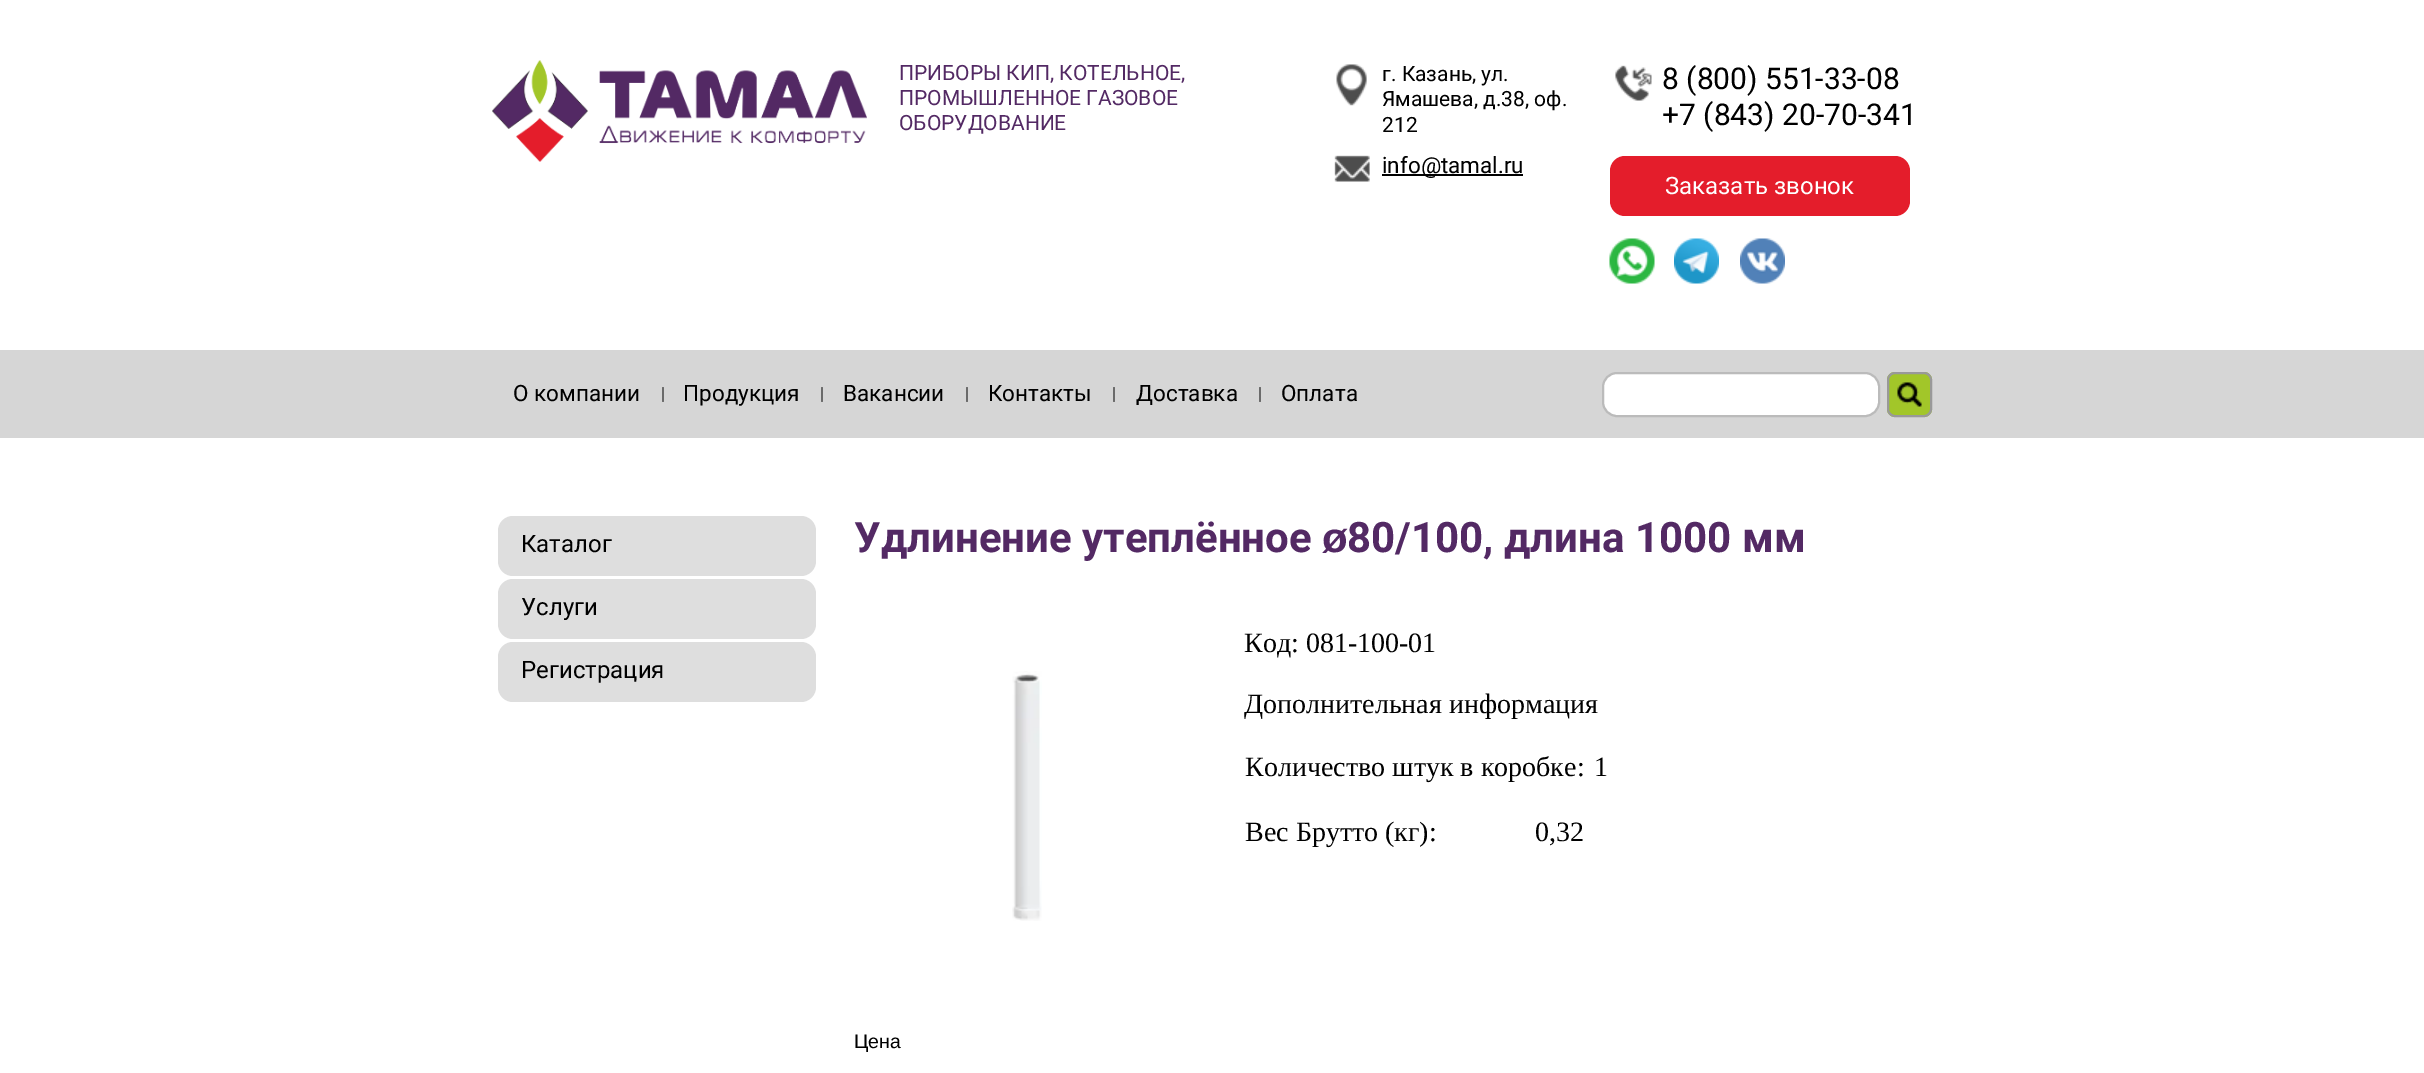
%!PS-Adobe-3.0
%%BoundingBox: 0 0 2424 1073
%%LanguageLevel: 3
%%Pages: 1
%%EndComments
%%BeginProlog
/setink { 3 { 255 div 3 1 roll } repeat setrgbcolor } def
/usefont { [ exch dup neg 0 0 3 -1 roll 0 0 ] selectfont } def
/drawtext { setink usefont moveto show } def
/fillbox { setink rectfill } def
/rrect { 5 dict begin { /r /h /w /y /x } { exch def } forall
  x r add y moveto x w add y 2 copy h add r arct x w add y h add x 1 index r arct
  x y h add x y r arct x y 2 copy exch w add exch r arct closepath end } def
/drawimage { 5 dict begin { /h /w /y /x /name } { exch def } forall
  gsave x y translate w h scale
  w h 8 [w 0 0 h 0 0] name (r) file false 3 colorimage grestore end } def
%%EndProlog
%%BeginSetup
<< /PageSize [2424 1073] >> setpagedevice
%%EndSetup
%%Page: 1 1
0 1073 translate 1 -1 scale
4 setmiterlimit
0 0 2424 1073 255 255 255 fillbox
(assets/img1.rgb) 492 60 375 102 drawimage
(ПРИБОРЫ КИП, КОТЕЛЬНОЕ,) 899 80 /Roboto-Regular 21 83 41 100 drawtext
(ПРОМЫШЛЕННОЕ ГАЗОВОЕ) 899 105 /Roboto-Regular 21 83 41 100 drawtext
(ОБОРУДОВАНИЕ) 899 130 /Roboto-Regular 21 83 41 100 drawtext
(assets/img2.rgb) 1336 64 31 42 drawimage
(г. Казань, ул.) 1382 81 /Roboto-Regular 21 0 0 0 drawtext
(Ямашева, д.38, оф.) 1382 106 /Roboto-Regular 21 0 0 0 drawtext
(212) 1382 132 /Roboto-Regular 21 0 0 0 drawtext
(assets/img3.rgb) 1334 155 36 27 drawimage
1382 174 141 2 0 0 0 fillbox
(info@tamal.ru) 1382 173 /Roboto-Regular 22.5 0 0 0 drawtext
(assets/img4.rgb) 1615 65 37 36 drawimage
(8 \(800\) 551-33-08) 1662 89 /Roboto-Regular 30 0 0 0 drawtext
(+7 \(843\) 20-70-341) 1662 125 /Roboto-Regular 30 0 0 0 drawtext
228 29 43 setink
1610 156 300 60 15 rrect fill
(Заказать звонок) 1665 194 /Roboto-Regular 24 255 255 255 drawtext
(assets/img5.rgb) 1609 238 46 46 drawimage
(assets/img6.rgb) 1674 238 45 46 drawimage
(assets/img7.rgb) 1740 238 45 46 drawimage
0 350 2424 88 214 214 214 fillbox
(О компании) 513 401 /Roboto-Regular 22.5 0 0 0 drawtext
107 107 107 setink
662 387 2 15 1 rrect fill
(Продукция) 683 401 /Roboto-Regular 22.5 0 0 0 drawtext
107 107 107 setink
821 387 2 15 1 rrect fill
(Вакансии) 843 401 /Roboto-Regular 22.5 0 0 0 drawtext
107 107 107 setink
966 387 2 15 1 rrect fill
(Контакты) 988 401 /Roboto-Regular 22.5 0 0 0 drawtext
107 107 107 setink
1113 387 2 15 1 rrect fill
(Доставка) 1136 401 /Roboto-Regular 22.5 0 0 0 drawtext
107 107 107 setink
1259 387 2 15 1 rrect fill
(Оплата) 1281 401 /Roboto-Regular 22.5 0 0 0 drawtext
255 255 255 setink
1603 373 276 43 14 rrect gsave fill grestore
187 187 187 setink
2 setlinewidth
stroke
162 198 41 setink
1887 372 45 45 8 rrect fill
(assets/img8.rgb) 1897 382 25 25 drawimage
153 153 153 setink
1888 373 43 43 7 rrect stroke
222 222 222 setink
498 516 318 60 15 rrect fill
(Каталог) 521 552 /Roboto-Regular 24 0 0 0 drawtext
222 222 222 setink
498 579 318 60 15 rrect fill
(Услуги) 521 615 /Roboto-Regular 24 0 0 0 drawtext
222 222 222 setink
498 642 318 60 15 rrect fill
(Регистрация) 521 678 /Roboto-Regular 24 0 0 0 drawtext
(Удлинение утеплённое) 854 552 /Roboto-Bold 42 83 41 100 drawtext
(ø) 1322 552 /LiberationSans-Bold 42 83 41 100 drawtext
(80/100, длина 1000 мм) 1347 552 /Roboto-Bold 42 83 41 100 drawtext
(assets/img9.rgb) 1012 671 30 250 drawimage
(Код: 081-100-01) 1244 652 /LiberationSerif-Regular 28 0 0 0 drawtext
(Дополнительная информация) 1244 713 /LiberationSerif-Regular 28 0 0 0 drawtext
(Количество штук в коробке:) 1245 776 /LiberationSerif-Regular 28 0 0 0 drawtext
(1) 1594 776 /LiberationSerif-Regular 28 0 0 0 drawtext
(Вес Брутто \(кг\):) 1245 841 /LiberationSerif-Regular 28 0 0 0 drawtext
(0,32) 1535 841 /LiberationSerif-Regular 28 0 0 0 drawtext
(Цена) 854 1048 /LiberationSans-Regular 19.5 0 0 0 drawtext
showpage
%%EOF
